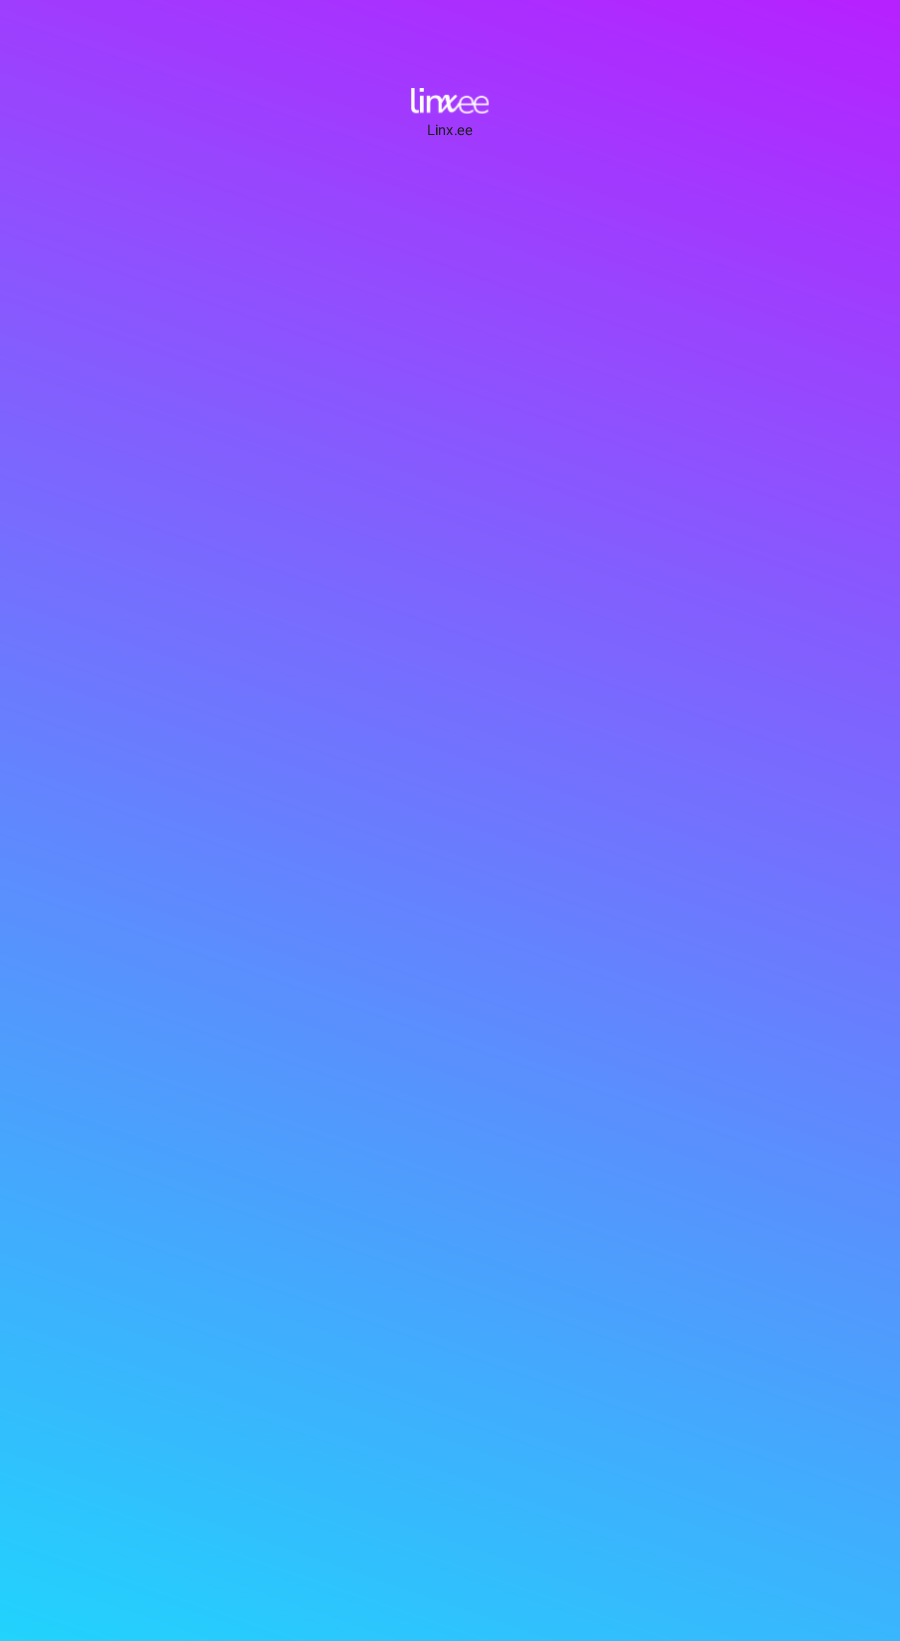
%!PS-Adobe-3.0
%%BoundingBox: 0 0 900 1641
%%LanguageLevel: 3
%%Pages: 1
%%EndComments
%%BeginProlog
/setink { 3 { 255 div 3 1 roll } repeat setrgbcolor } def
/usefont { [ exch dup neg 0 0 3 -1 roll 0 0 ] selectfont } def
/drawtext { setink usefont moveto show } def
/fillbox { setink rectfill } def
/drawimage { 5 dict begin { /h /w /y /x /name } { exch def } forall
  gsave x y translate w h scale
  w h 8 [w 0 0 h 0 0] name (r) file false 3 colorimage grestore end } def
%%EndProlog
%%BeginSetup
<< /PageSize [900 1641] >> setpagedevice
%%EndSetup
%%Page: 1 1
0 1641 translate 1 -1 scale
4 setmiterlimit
0 0 900 1641 255 255 255 fillbox
gsave 0 0 moveto 900 0 lineto 900 1641 lineto 0 1641 lineto closepath clip newpath
<< /ShadingType 2 /ColorSpace /DeviceRGB /Coords [150 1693 750 -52] /Extend [true true] /Function << /FunctionType 2 /Domain [0 1] /C0 [0.129 0.831 0.992] /C1 [0.718 0.129 1] /N 1 >> >> shfill grestore
(assets/img1.rgb) 411 88 78 26 drawimage
(Linx.ee) 427 135 /Roboto-Regular 14.5 31 31 31 drawtext
showpage
%%EOF
